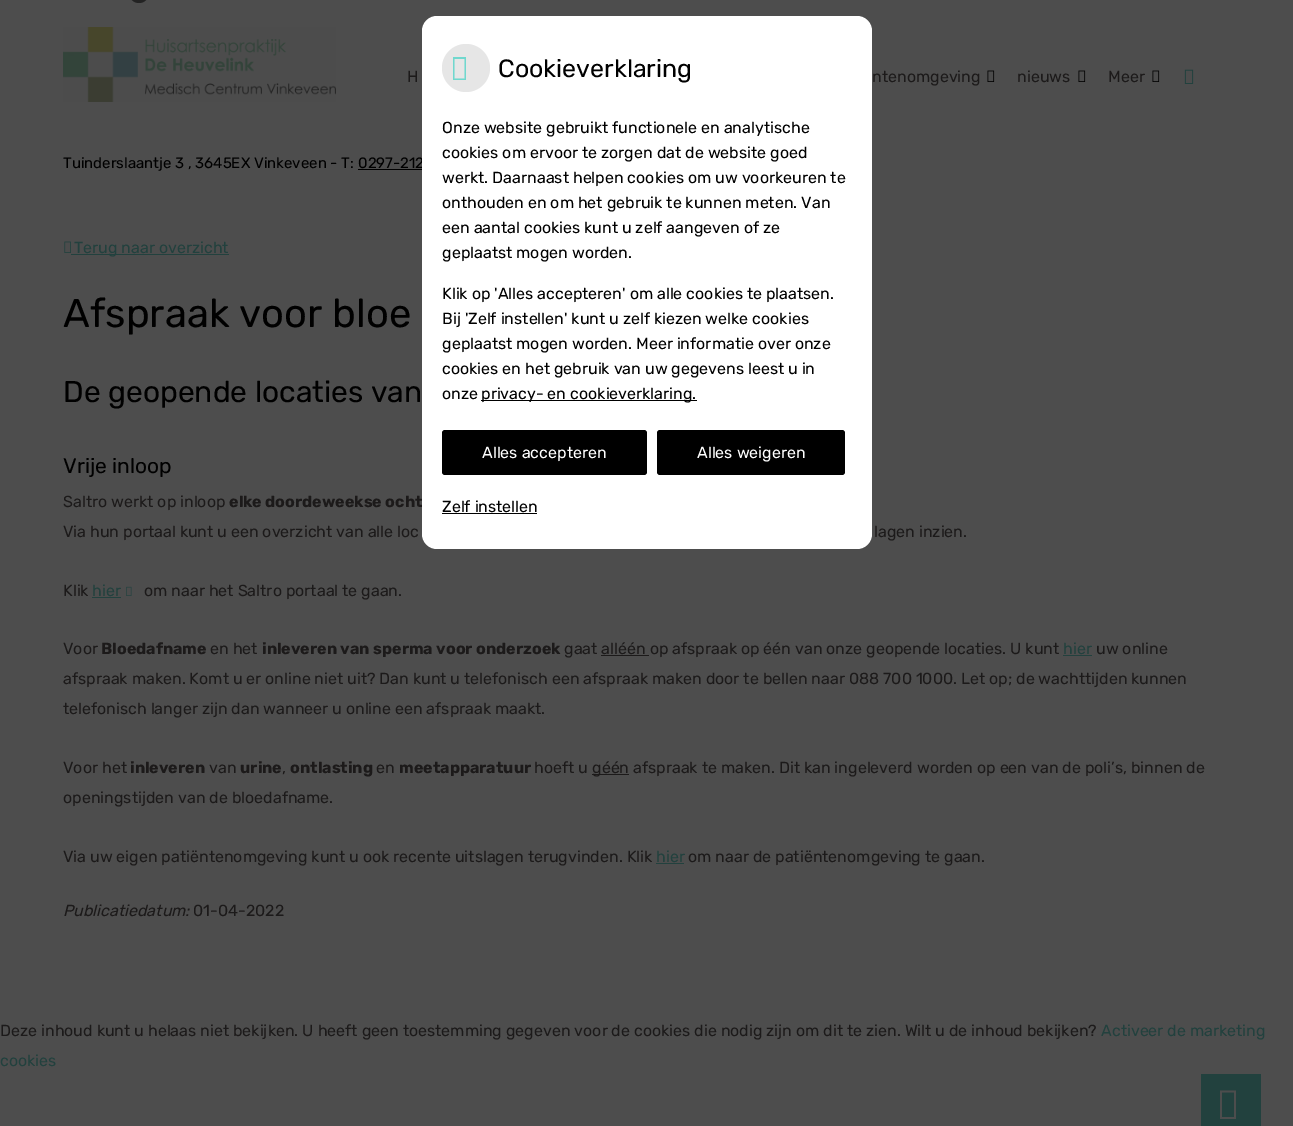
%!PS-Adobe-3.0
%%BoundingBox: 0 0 1293 1126
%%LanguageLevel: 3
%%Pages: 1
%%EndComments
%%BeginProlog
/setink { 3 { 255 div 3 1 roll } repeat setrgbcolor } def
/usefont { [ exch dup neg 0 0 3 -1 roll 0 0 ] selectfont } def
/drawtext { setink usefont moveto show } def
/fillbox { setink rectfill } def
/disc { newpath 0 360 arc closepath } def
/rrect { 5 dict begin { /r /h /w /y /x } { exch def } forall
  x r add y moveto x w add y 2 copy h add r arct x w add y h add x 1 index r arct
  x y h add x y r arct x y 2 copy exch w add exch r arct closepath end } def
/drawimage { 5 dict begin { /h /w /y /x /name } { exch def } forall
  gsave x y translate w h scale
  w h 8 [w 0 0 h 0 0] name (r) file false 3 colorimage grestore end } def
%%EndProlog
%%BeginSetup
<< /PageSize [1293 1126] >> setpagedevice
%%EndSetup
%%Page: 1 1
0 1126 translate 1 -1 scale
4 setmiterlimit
0 0 1293 1126 77 77 77 fillbox
35 35 35 setink
129 -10 20 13 10 rrect fill
(0297-212) 358 168 /Rubik-Light 15 0 0 0 drawtext
255 255 255 setink
422 16 450 533 15 rrect fill
230 230 230 setink
466 68 24 disc fill
112 216 206 setink
453 80 moveto 453 57 lineto 466 57 lineto 466 80 lineto closepath 454.5 78.5 moveto 464.5 78.5 lineto 464.5 59 lineto 454.5 59 lineto closepath fill
(Cookieverklaring) 498 77 /Rubik-Light 25 0 0 0 drawtext
(Onze website gebruikt functionele en analytische) 442 133 /Rubik-Light 16 0 0 0 drawtext
(cookies om ervoor te zorgen dat de website goed) 442 158 /Rubik-Light 16 0 0 0 drawtext
(werkt. Daarnaast helpen cookies om uw voorkeuren te) 442 183 /Rubik-Light 16 0 0 0 drawtext
(onthouden en om het gebruik te kunnen meten. Van) 442 208 /Rubik-Light 16 0 0 0 drawtext
(een aantal cookies kunt u zelf aangeven of ze) 442 233 /Rubik-Light 16 0 0 0 drawtext
(geplaatst mogen worden.) 442 258 /Rubik-Light 16 0 0 0 drawtext
(Klik op 'Alles accepteren' om alle cookies te plaatsen.) 442 299 /Rubik-Light 16 0 0 0 drawtext
(Bij 'Zelf instellen' kunt u zelf kiezen welke cookies) 442 324 /Rubik-Light 16 0 0 0 drawtext
(geplaatst mogen worden. Meer informatie over onze) 442 349 /Rubik-Light 16 0 0 0 drawtext
(cookies en het gebruik van uw gegevens leest u in) 442 374 /Rubik-Light 16 0 0 0 drawtext
(onze) 442 399 /Rubik-Light 16 0 0 0 drawtext
481 400 216 1 0 0 0 fillbox
(privacy- en cookieverklaring.) 481 399 /Rubik-Light 16 0 0 0 drawtext
442 430 205 45 3 rrect fill
(Alles accepteren) 482 458 /Rubik-Light 16 255 255 255 drawtext
0 0 0 setink
657 430 188 45 3 rrect fill
(Alles weigeren) 697 458 /Rubik-Light 16 255 255 255 drawtext
(Zelf instellen) 442 512 /Rubik-Light 16 0 0 0 drawtext
442 513 95 1 0 0 0 fillbox
(assets/img1.rgb) 63 27 273 75 drawimage
(H) 407 82 /Rubik-Light 16 28 26 26 drawtext
(ntenomgeving) 872 82 /Rubik-Light 16 28 26 26 drawtext
(assets/img2.rgb) 987 70 8 12 drawimage
(nieuws) 1017 82 /Rubik-Light 16 28 26 26 drawtext
(assets/img2.rgb) 1078 70 8 12 drawimage
(Meer) 1108 82 /Rubik-Light 16 28 26 26 drawtext
(assets/img2.rgb) 1152 70 8 12 drawimage
(assets/img3.rgb) 1184 69 10 15 drawimage
(Tuinderslaantje 3 , 3645EX Vinkeveen - T:) 63 168 /Rubik-Light 15 0 0 0 drawtext
358 169 64 1 0 0 0 fillbox
(assets/img4.rgb) 64 241 7 12 drawimage
71 254 158 1 34 65 62 fillbox
(Terug naar overzicht) 74 253 /Rubik-Light 16 34 65 62 drawtext
(Afspraak voor bloe) 63 327 /Rubik-Light 40 0 0 0 drawtext
(De geopende locaties van) 63 402 /Rubik-Light 30 0 0 0 drawtext
(Vrije inloop) 63 473 /Rubik-Light 21 0 0 0 drawtext
(Saltro werkt op inloop) 63 507 /Rubik-Light 16 28 26 26 drawtext
(elke doordeweekse ocht) 229 507 /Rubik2-Light 16 28 26 26 drawtext
(Via hun portaal kunt u een overzicht van alle loc) 63 537 /Rubik-Light 16 28 26 26 drawtext
(lagen inzien.) 874 537 /Rubik-Light 16 28 26 26 drawtext
(Klik) 63 596 /Rubik-Light 16 28 26 26 drawtext
(hier) 92 596 /Rubik-Light 16 34 65 62 drawtext
92 597 29 1 34 65 62 fillbox
(assets/img5.rgb) 126 586 6 10 drawimage
(om naar het Saltro portaal te gaan.) 144 596 /Rubik-Light 16 28 26 26 drawtext
(Voor) 63 654 /Rubik-Light 16 28 26 26 drawtext
(Bloedafname) 101 654 /Rubik2-Light 16 28 26 26 drawtext
(en het) 210 654 /Rubik-Light 16 28 26 26 drawtext
(inleveren van sperma voor onderzoek) 262 654 /Rubik2-Light 16 28 26 26 drawtext
(gaat alléén op afspraak op één van onze geopende locaties. U kunt) 564 654 /Rubik-Light 16 28 26 26 drawtext
(hier) 1063 654 /Rubik-Light 16 34 65 62 drawtext
1063 655 29 1 34 65 62 fillbox
(uw online) 1096 654 /Rubik-Light 16 28 26 26 drawtext
601 655 48 1 28 26 26 fillbox
(afspraak maken. Komt u er online niet uit? Dan kunt u telefonisch een afspraak maken door te bellen naar 088 700 1000. Let op; de wachttijden kunnen) 63 684 /Rubik-Light 16 28 26 26 drawtext
(telefonisch langer zijn dan wanneer u online een afspraak maakt.) 63 714 /Rubik-Light 16 28 26 26 drawtext
(Voor het) 63 773 /Rubik-Light 16 28 26 26 drawtext
(inleveren) 130 773 /Rubik2-Light 16 28 26 26 drawtext
(van) 209 773 /Rubik-Light 16 28 26 26 drawtext
(urine) 240 773 /Rubik2-Light 16 28 26 26 drawtext
(,) 282 773 /Rubik-Light 16 28 26 26 drawtext
(ontlasting) 290 773 /Rubik2-Light 16 28 26 26 drawtext
(en) 376 773 /Rubik-Light 16 28 26 26 drawtext
(meetapparatuur) 399 773 /Rubik2-Light 16 28 26 26 drawtext
(hoeft u) 534 773 /Rubik-Light 16 28 26 26 drawtext
592 774 37 1 28 26 26 fillbox
(géén afspraak te maken. Dit kan ingeleverd worden op een van de poli’s, binnen de) 592 773 /Rubik-Light 16 28 26 26 drawtext
(openingstijden van de bloedafname.) 63 803 /Rubik-Light 16 28 26 26 drawtext
(Via uw eigen patiëntenomgeving kunt u ook recente uitslagen terugvinden. Klik) 63 862 /Rubik-Light 16 28 26 26 drawtext
(hier) 656 862 /Rubik-Light 16 34 65 62 drawtext
656 863 28 1 34 65 62 fillbox
(om naar de patiëntenomgeving te gaan.) 688 862 /Rubik-Light 16 28 26 26 drawtext
(Publicatiedatum:) 63 916 /Rubik-LightItalic 16 28 26 26 drawtext
(01-04-2022) 193 916 /Rubik-Light 16 28 26 26 drawtext
(Deze inhoud kunt u helaas niet bekijken. U heeft geen toestemming gegeven voor de cookies die nodig zijn om dit te zien. Wilt u de inhoud bekijken?) 0 1036 /Rubik-Light 16 28 26 26 drawtext
(Activeer de marketing) 1101 1036 /Rubik-Light 16 34 65 62 drawtext
(cookies) 0 1066 /Rubik-Light 16 34 65 62 drawtext
1201 1074 60 52 34 65 62 fillbox
77 77 77 setink
1220 1119 moveto 1220 1090.5 lineto 1236 1090.5 lineto 1236 1119 lineto closepath 1222 1117 moveto 1234 1117 lineto 1234 1092.5 lineto 1222 1092.5 lineto closepath fill
showpage
%%EOF
